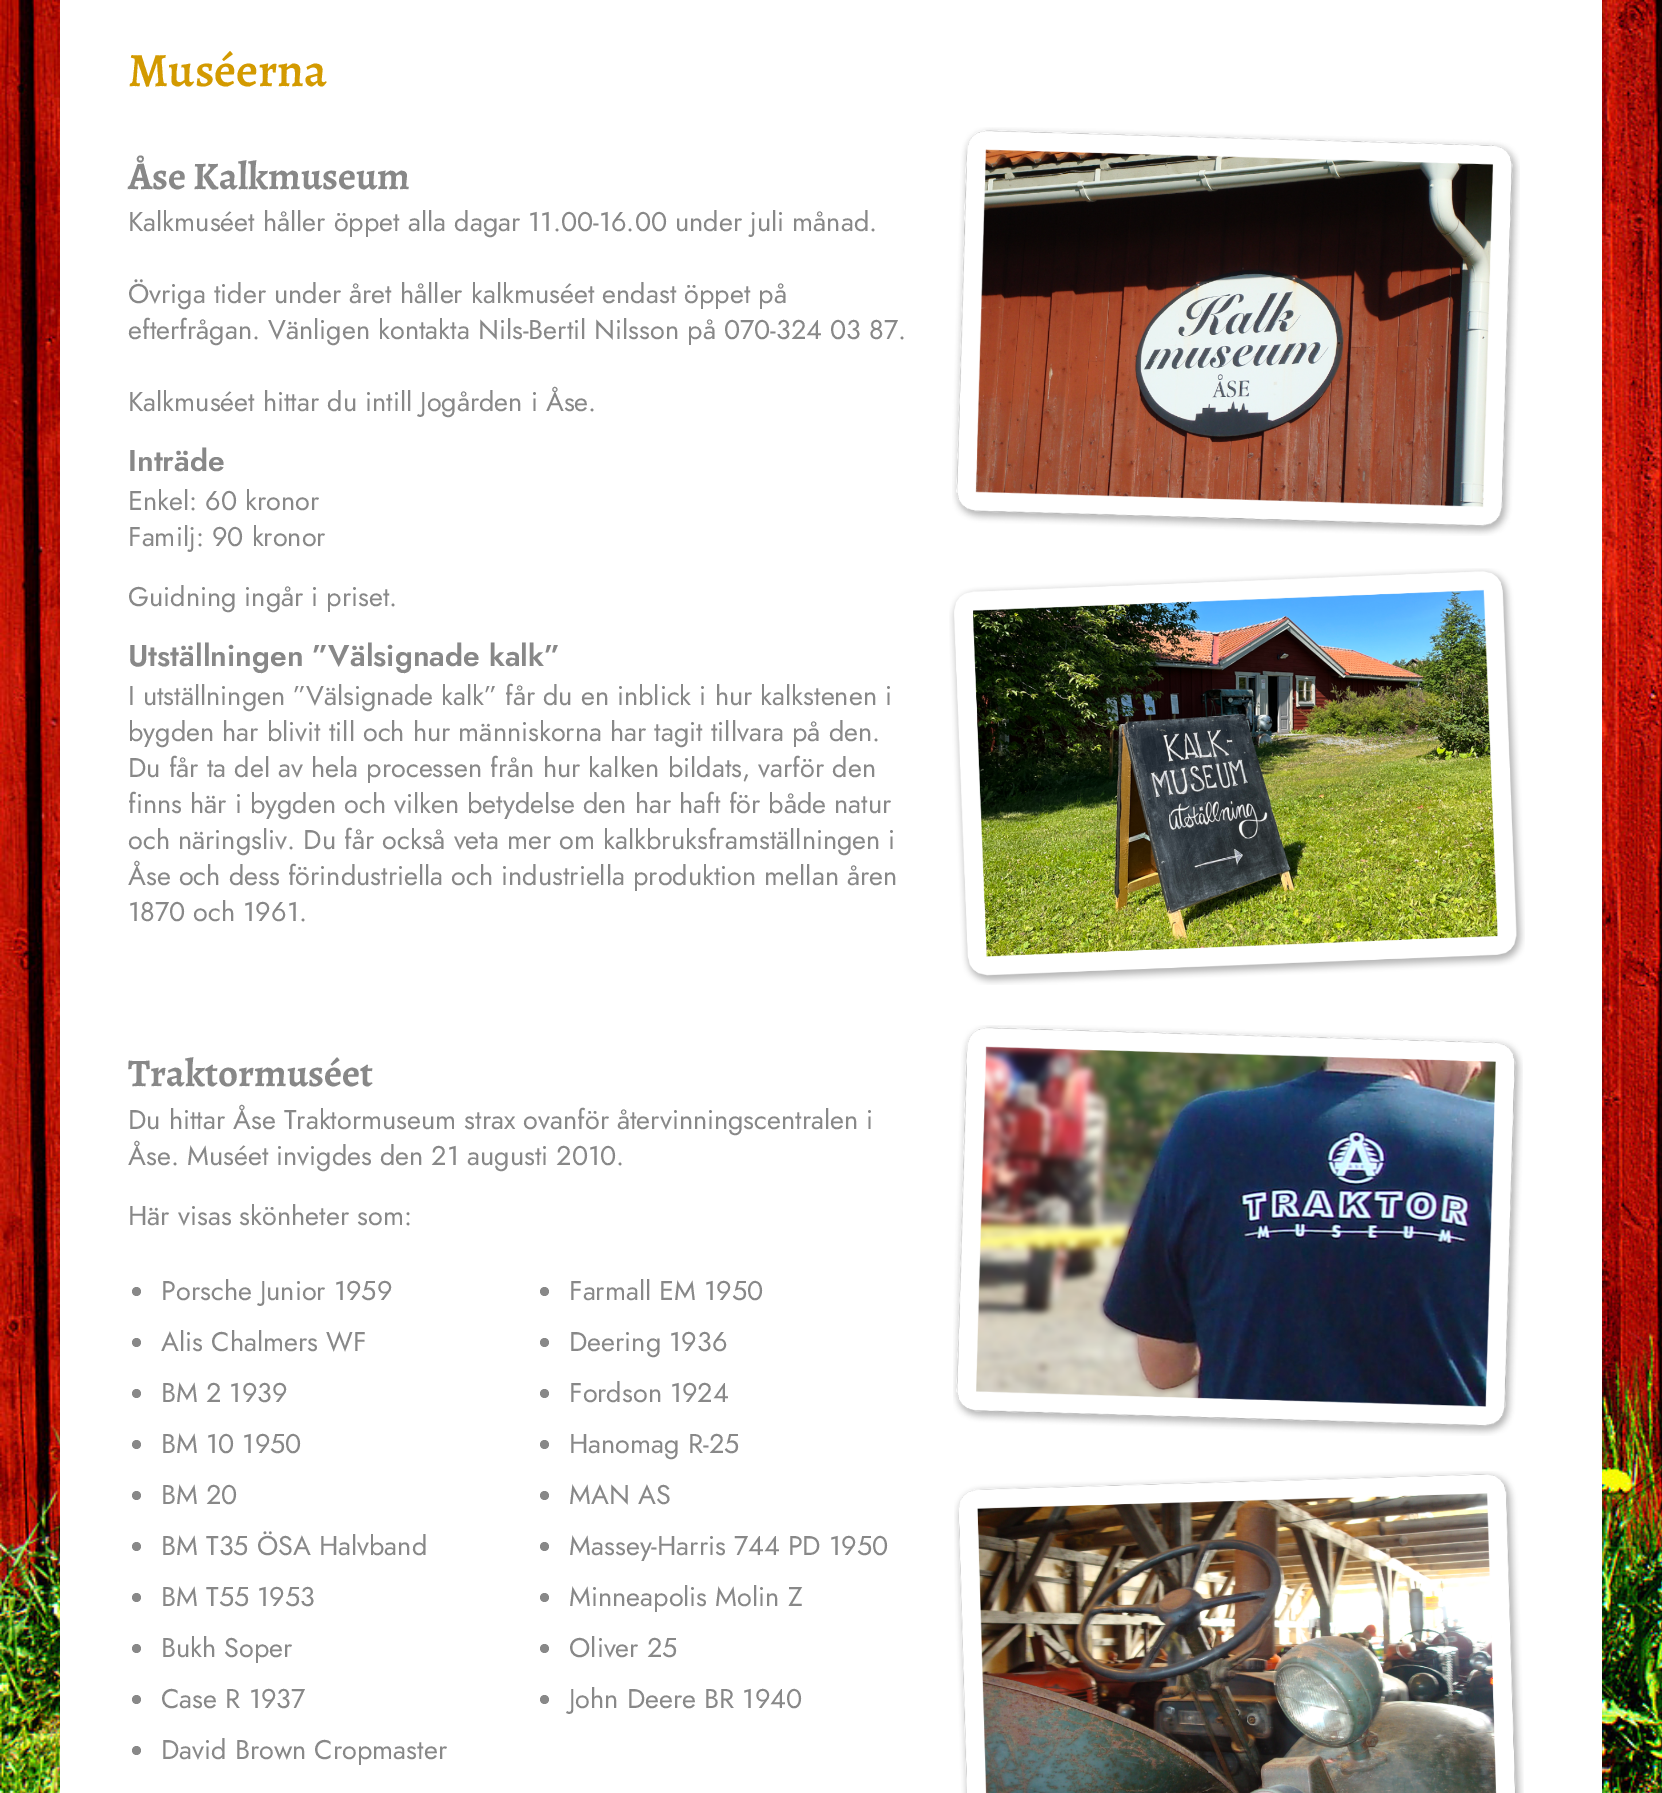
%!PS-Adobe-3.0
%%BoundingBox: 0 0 1662 1793
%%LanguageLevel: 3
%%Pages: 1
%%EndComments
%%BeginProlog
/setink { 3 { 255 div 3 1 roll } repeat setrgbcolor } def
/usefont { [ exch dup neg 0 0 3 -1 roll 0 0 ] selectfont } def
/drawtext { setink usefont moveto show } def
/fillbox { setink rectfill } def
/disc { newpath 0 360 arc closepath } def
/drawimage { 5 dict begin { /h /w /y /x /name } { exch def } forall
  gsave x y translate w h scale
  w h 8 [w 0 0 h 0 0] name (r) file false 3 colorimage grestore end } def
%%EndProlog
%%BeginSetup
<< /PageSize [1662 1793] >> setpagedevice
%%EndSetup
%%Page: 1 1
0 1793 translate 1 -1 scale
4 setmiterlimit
0 0 1662 1793 255 255 255 fillbox
(assets/img1.rgb) 0 0 1662 1793 drawimage
60 0 1542 1793 255 255 255 fillbox
(Muséerna) 128 86 /Alegreya-SemiBold 48 211 154 0 drawtext
(Åse Kalkmuseum) 128 189 /Alegreya-Bold 39 136 136 136 drawtext
(Kalkmuséet håller öppet alla dagar 11.00-16.00 under juli månad.) 128 231 /Jost-Regular 27 136 136 136 drawtext
(Övriga tider under året håller kalkmuséet endast öppet på) 128 303 /Jost-Regular 27 136 136 136 drawtext
(efterfrågan. Vänligen kontakta Nils-Bertil Nilsson på 070-324 03 87.) 128 339 /Jost-Regular 27 136 136 136 drawtext
(Kalkmuséet hittar du intill Jogården i Åse.) 128 411 /Jost-Regular 27 136 136 136 drawtext
(Inträde) 128 471 /Jost-SemiBold 30 136 136 136 drawtext
(Enkel: 60 kronor) 128 510 /Jost-Regular 27 136 136 136 drawtext
(Familj: 90 kronor) 128 546 /Jost-Regular 27 136 136 136 drawtext
(Guidning ingår i priset.) 128 606 /Jost-Regular 27 136 136 136 drawtext
(Utställningen ”Välsignade kalk”) 128 666 /Jost-SemiBold 30 136 136 136 drawtext
(I utställningen ”Välsignade kalk” får du en inblick i hur kalkstenen i) 128 705 /Jost-Regular 27 136 136 136 drawtext
(bygden har blivit till och hur människorna har tagit tillvara på den.) 128 741 /Jost-Regular 27 136 136 136 drawtext
(Du får ta del av hela processen från hur kalken bildats, varför den) 128 777 /Jost-Regular 27 136 136 136 drawtext
(finns här i bygden och vilken betydelse den har haft för både natur) 128 813 /Jost-Regular 27 136 136 136 drawtext
(och näringsliv. Du får också veta mer om kalkbruksframställningen i) 128 849 /Jost-Regular 27 136 136 136 drawtext
(Åse och dess förindustriella och industriella produktion mellan åren) 128 885 /Jost-Regular 27 136 136 136 drawtext
(1870 och 1961.) 128 921 /Jost-Regular 27 136 136 136 drawtext
(assets/img2.rgb) 952 127 568 409 drawimage
(assets/img3.rgb) 949 568 576 417 drawimage
(Traktormuséet) 128 1086 /Alegreya-Bold 39 136 136 136 drawtext
(Du hittar Åse Traktormuseum strax ovanför återvinningscentralen i) 128 1129 /Jost-Regular 27 136 136 136 drawtext
(Åse. Muséet invigdes den 21 augusti 2010.) 128 1165 /Jost-Regular 27 136 136 136 drawtext
(Här visas skönheter som:) 128 1225 /Jost-Regular 27 136 136 136 drawtext
136.5 1291.5 4.5 disc fill
(Porsche Junior 1959) 161 1300 /Jost-Regular 27 136 136 136 drawtext
544.5 1291.5 4.5 disc fill
(Farmall EM 1950) 569 1300 /Jost-Regular 27 136 136 136 drawtext
136.5 1342.5 4.5 disc fill
(Alis Chalmers WF) 161 1351 /Jost-Regular 27 136 136 136 drawtext
544.5 1342.5 4.5 disc fill
(Deering 1936) 569 1351 /Jost-Regular 27 136 136 136 drawtext
136.5 1393.5 4.5 disc fill
(BM 2 1939) 161 1402 /Jost-Regular 27 136 136 136 drawtext
544.5 1393.5 4.5 disc fill
(Fordson 1924) 569 1402 /Jost-Regular 27 136 136 136 drawtext
136.5 1444.5 4.5 disc fill
(BM 10 1950) 161 1453 /Jost-Regular 27 136 136 136 drawtext
544.5 1444.5 4.5 disc fill
(Hanomag R-25) 569 1453 /Jost-Regular 27 136 136 136 drawtext
136.5 1495.5 4.5 disc fill
(BM 20) 161 1504 /Jost-Regular 27 136 136 136 drawtext
544.5 1495.5 4.5 disc fill
(MAN AS) 569 1504 /Jost-Regular 27 136 136 136 drawtext
136.5 1546.5 4.5 disc fill
(BM T35 ÖSA Halvband) 161 1555 /Jost-Regular 27 136 136 136 drawtext
544.5 1546.5 4.5 disc fill
(Massey-Harris 744 PD 1950) 569 1555 /Jost-Regular 27 136 136 136 drawtext
136.5 1597.5 4.5 disc fill
(BM T55 1953) 161 1606 /Jost-Regular 27 136 136 136 drawtext
544.5 1597.5 4.5 disc fill
(Minneapolis Molin Z) 569 1606 /Jost-Regular 27 136 136 136 drawtext
136.5 1648.5 4.5 disc fill
(Bukh Soper) 161 1657 /Jost-Regular 27 136 136 136 drawtext
544.5 1648.5 4.5 disc fill
(Oliver 25) 569 1657 /Jost-Regular 27 136 136 136 drawtext
136.5 1699.5 4.5 disc fill
(Case R 1937) 161 1708 /Jost-Regular 27 136 136 136 drawtext
544.5 1699.5 4.5 disc fill
(John Deere BR 1940) 569 1708 /Jost-Regular 27 136 136 136 drawtext
136.5 1750.5 4.5 disc fill
(David Brown Cropmaster) 161 1759 /Jost-Regular 27 136 136 136 drawtext
(assets/img4.rgb) 953 1025 570 411 drawimage
(assets/img5.rgb) 954 1471 570 322 drawimage
showpage
%%EOF
